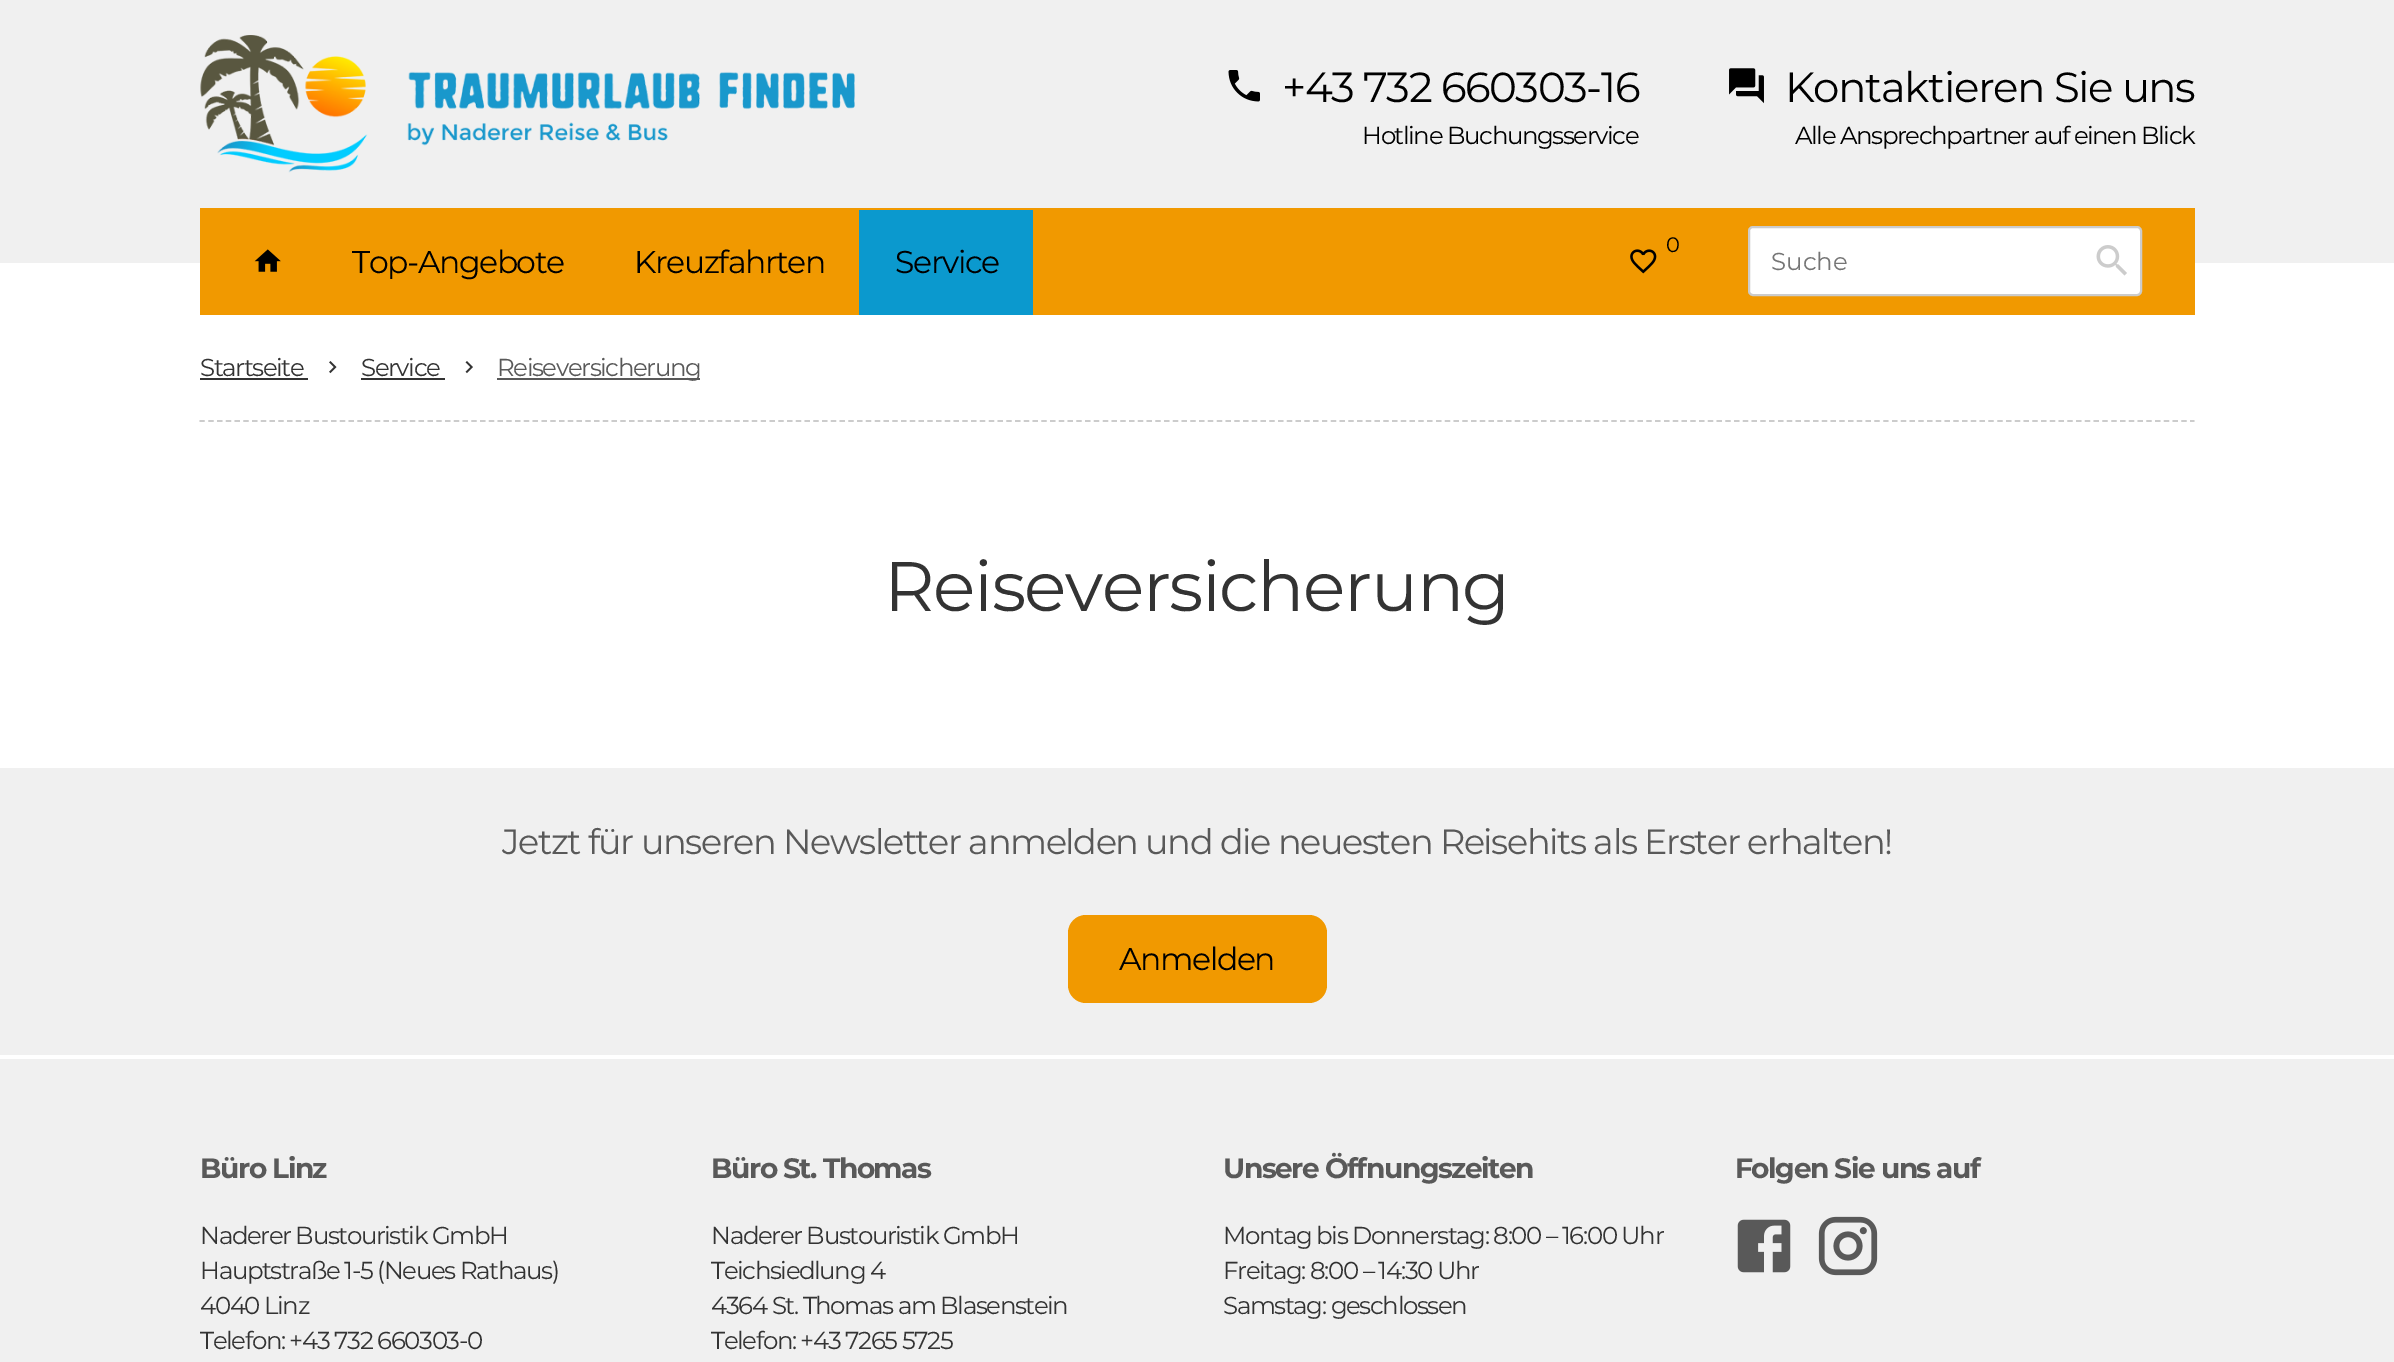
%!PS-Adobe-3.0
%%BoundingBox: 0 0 2394 1362
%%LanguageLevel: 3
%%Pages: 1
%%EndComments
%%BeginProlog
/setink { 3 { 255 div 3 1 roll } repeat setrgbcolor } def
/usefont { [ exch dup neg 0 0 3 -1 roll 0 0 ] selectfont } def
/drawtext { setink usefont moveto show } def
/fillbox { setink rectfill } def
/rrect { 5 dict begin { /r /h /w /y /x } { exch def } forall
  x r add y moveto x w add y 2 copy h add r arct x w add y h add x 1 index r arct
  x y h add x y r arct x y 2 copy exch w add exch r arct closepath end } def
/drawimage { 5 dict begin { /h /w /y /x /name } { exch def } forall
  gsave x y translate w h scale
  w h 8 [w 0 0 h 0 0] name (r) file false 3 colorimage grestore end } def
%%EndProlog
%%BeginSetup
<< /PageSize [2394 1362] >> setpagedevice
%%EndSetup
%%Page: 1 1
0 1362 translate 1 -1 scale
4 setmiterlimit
0 0 2394 1362 240 240 240 fillbox
(assets/img1.rgb) 200 35 655 138 drawimage
(assets/img2.rgb) 1228 70 32 32 drawimage
/Montserrat-Regular 42 usefont
0 0 0 setink
1282 102 moveto -1.4 0 (+43 732 660303-16) ashow
/Montserrat-Regular 24.5 usefont
1362 144 moveto -1.4 0 (Hotline Buchungsservice) ashow
(assets/img3.rgb) 1729 68 35 36 drawimage
/Montserrat-Regular 42 usefont
1785 102 moveto -1.4 0 (Kontaktieren Sie uns) ashow
/Montserrat-Regular 24.5 usefont
1795 144 moveto -1.4 0 (Alle Ansprechpartner auf einen Blick) ashow
0 263 2394 505 255 255 255 fillbox
200 208 1995 107 241 153 0 fillbox
/Montserrat-Regular 21 usefont
0 0 0 setink
1666 252 moveto -1.4 0 (0) ashow
(assets/img4.rgb) 1630 249 27 25 drawimage
(assets/img5.rgb) 254 249 27 23 drawimage
/Montserrat-Regular 31.5 usefont
352 273 moveto -1.4 0 (Top-Angebote) ashow
634 273 moveto -1.4 0 (Kreuzfahrten) ashow
859 210 174 105 11 153 206 fillbox
0 0 0 setink
895 273 moveto -1.4 0 (Service) ashow
255 255 255 setink
1749 227 392 68 4 rrect gsave fill grestore
204 204 204 setink
2 setlinewidth
stroke
(Suche) 1771 270 /Montserrat-Regular 24.5 117 117 117 drawtext
(assets/img6.rgb) 2096 245 31 31 drawimage
204 204 204 setink
1.8 setlinewidth
[5.25 3.52] 0 setdash
199.5 421 moveto 2194.5 421 lineto stroke
51 51 51 setink
200 376 moveto -1.4 0 (Startseite) ashow
200 378 108 2 51 51 51 fillbox
(assets/img7.rgb) 329 361 8 13 drawimage
361 376 moveto -1.4 0 (Service) ashow
361 378 84 2 51 51 51 fillbox
(assets/img8.rgb) 465 361 8 13 drawimage
497 378 203 2 89 89 89 fillbox
497 376 moveto -1.4 0 (Reiseversicherung) ashow
/Montserrat-Regular 70 usefont
51 51 51 setink
884 611 moveto -1.4 0 (Reiseversicherung) ashow
0 1055 2394 4 255 255 255 fillbox
/Montserrat-Regular 35 usefont
89 89 89 setink
502 854 moveto -1.4 0 (Jetzt für unseren Newsletter anmelden und die neuesten Reisehits als Erster erhalten!) ashow
241 153 0 setink
1068 915 259 88 18 rrect fill
/Montserrat-Regular 31.5 usefont
0 0 0 setink
1119 970 moveto -1.4 0 (Anmelden) ashow
/Montserrat-Bold 28 usefont
89 89 89 setink
200 1178 moveto -1.4 0 (Büro Linz) ashow
/Montserrat-Regular 24.5 usefont
51 51 51 setink
200 1244 moveto -1.4 0 (Naderer Bustouristik GmbH) ashow
200 1279 moveto -1.4 0 (Hauptstraße 1-5 \(Neues Rathaus\)) ashow
200 1314 moveto -1.4 0 (4040 Linz) ashow
200 1349 moveto -1.4 0 (Telefon: +43 732 660303-0) ashow
/Montserrat-Bold 28 usefont
89 89 89 setink
711 1178 moveto -1.4 0 (Büro St. Thomas) ashow
/Montserrat-Regular 24.5 usefont
51 51 51 setink
711 1244 moveto -1.4 0 (Naderer Bustouristik GmbH) ashow
711 1279 moveto -1.4 0 (Teichsiedlung 4) ashow
711 1314 moveto -1.4 0 (4364 St. Thomas am Blasenstein) ashow
711 1349 moveto -1.4 0 (Telefon: +43 7265 5725) ashow
/Montserrat-Bold 28 usefont
89 89 89 setink
1223 1178 moveto -1.4 0 (Unsere Öffnungszeiten) ashow
/Montserrat-Regular 24.5 usefont
51 51 51 setink
1223 1244 moveto -1.4 0 (Montag bis Donnerstag: 8:00 – 16:00 Uhr) ashow
1223 1279 moveto -1.4 0 (Freitag: 8:00 – 14:30 Uhr) ashow
1223 1314 moveto -1.4 0 (Samstag: geschlossen) ashow
/Montserrat-Bold 28 usefont
89 89 89 setink
1735 1178 moveto -1.4 0 (Folgen Sie uns auf) ashow
(assets/img9.rgb) 1737 1219 54 54 drawimage
(assets/img10.rgb) 1818 1216 60 60 drawimage
showpage
%%EOF
